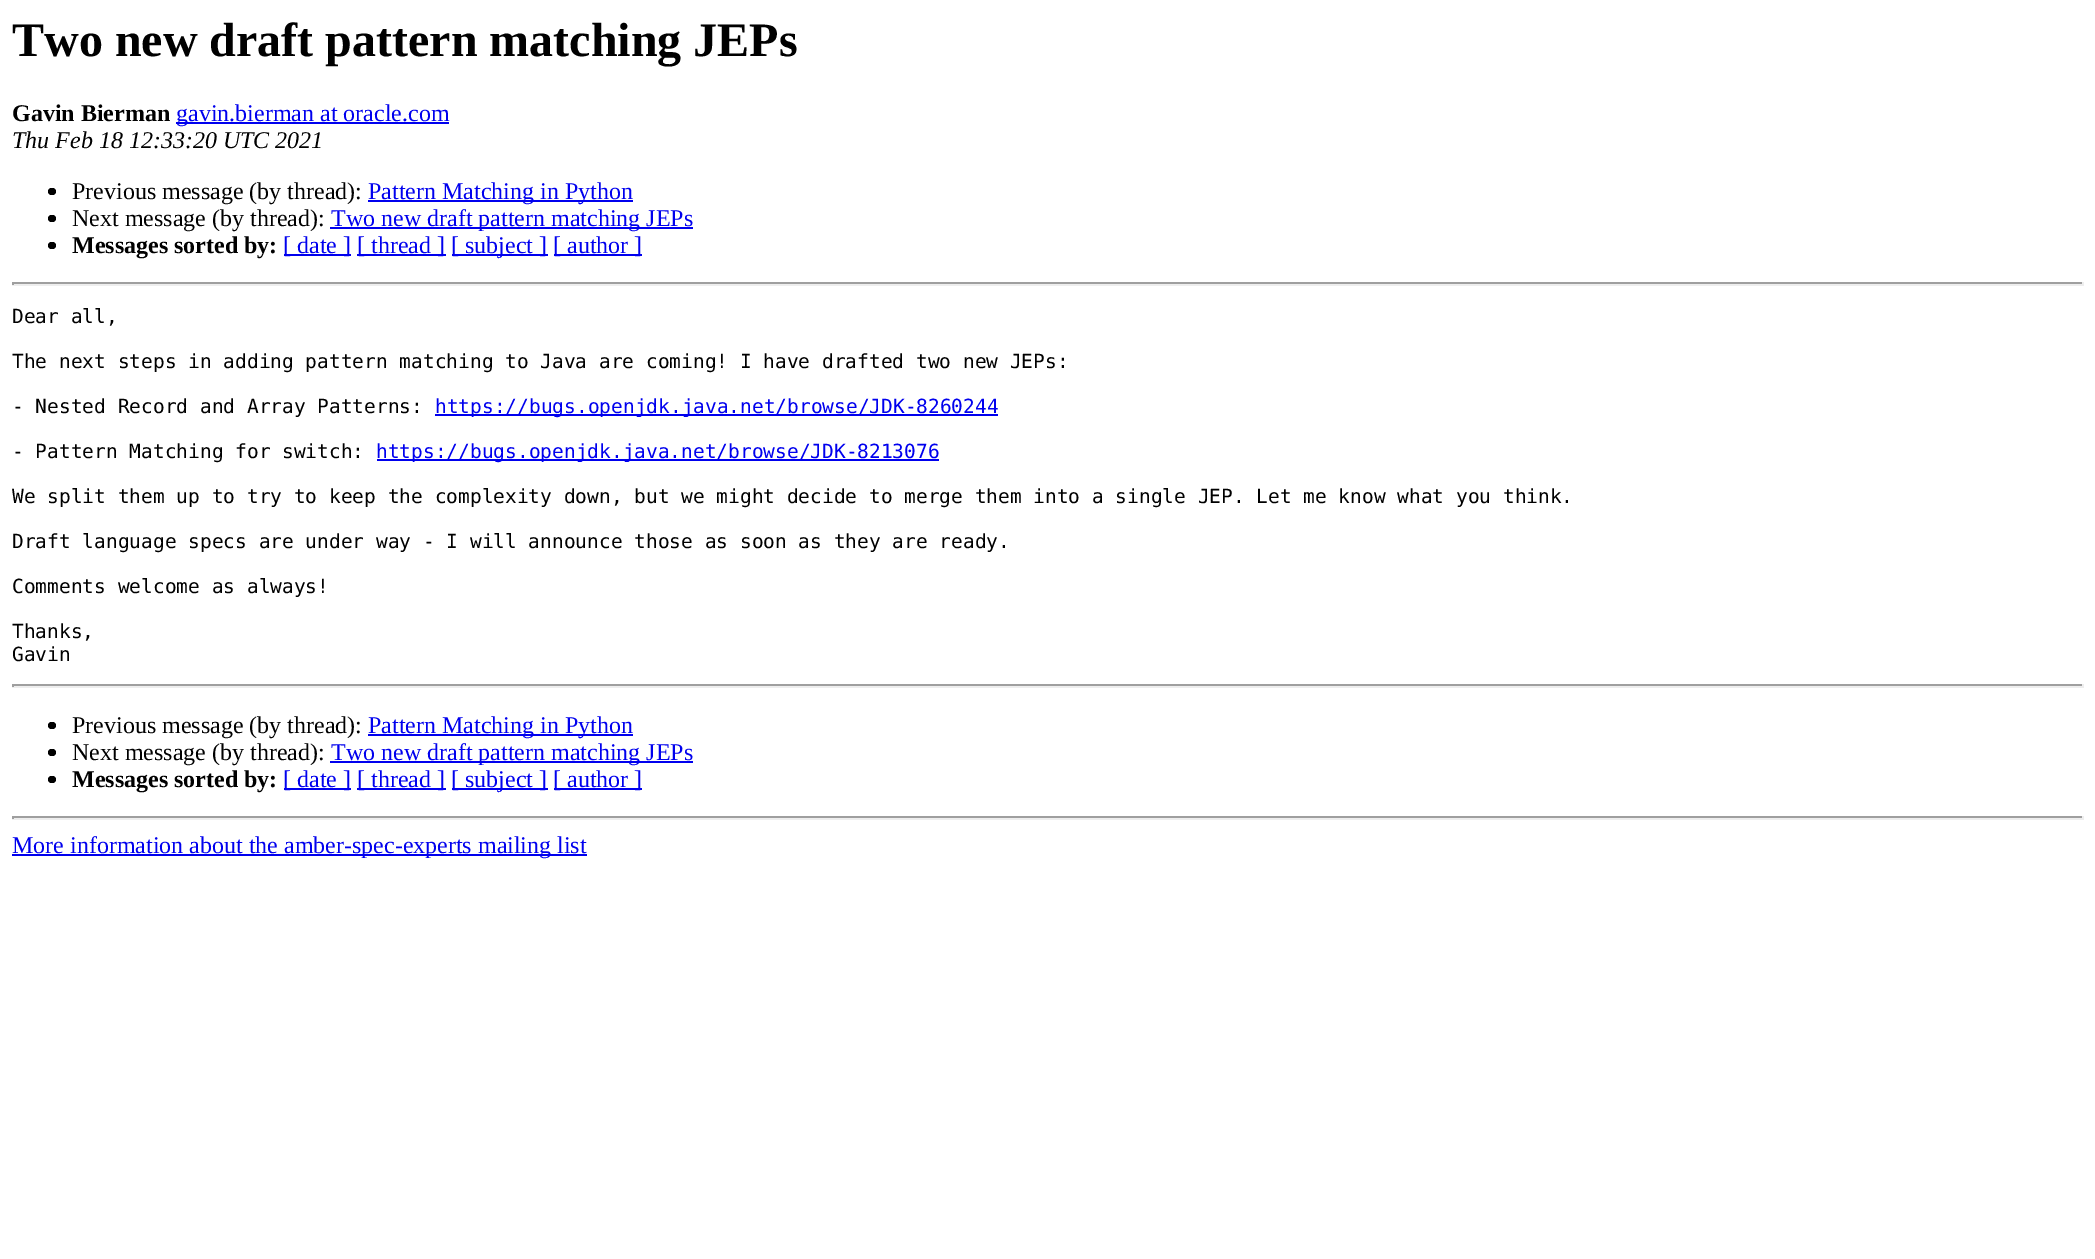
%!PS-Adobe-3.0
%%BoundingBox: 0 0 2095 1259
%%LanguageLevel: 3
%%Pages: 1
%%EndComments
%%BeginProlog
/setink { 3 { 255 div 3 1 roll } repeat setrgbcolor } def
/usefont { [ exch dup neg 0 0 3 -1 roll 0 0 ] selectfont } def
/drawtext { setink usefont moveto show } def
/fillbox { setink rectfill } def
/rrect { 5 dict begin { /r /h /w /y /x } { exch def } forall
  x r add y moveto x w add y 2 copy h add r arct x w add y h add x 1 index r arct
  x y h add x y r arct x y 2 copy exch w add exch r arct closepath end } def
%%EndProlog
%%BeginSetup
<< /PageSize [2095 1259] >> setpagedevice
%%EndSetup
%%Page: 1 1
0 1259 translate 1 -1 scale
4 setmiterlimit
0 0 2095 1259 255 255 255 fillbox
(Two new draft pattern matching JEPs) 12 56 /LiberationSerif-Bold 48 0 0 0 drawtext
(Gavin Bierman) 12 121 /LiberationSerif-Bold 24 0 0 0 drawtext
176 122 273 2 0 0 238 fillbox
(gavin.bierman at oracle.com) 176 121 /LiberationSerif-Regular 24 0 0 238 drawtext
(Thu Feb 18 12:33:20 UTC 2021) 12 148 /LiberationSerif-Italic 24 0 0 0 drawtext
48 188 8 7 3.5 rrect fill
(Previous message \(by thread\):) 72 199 /LiberationSerif-Regular 24 0 0 0 drawtext
368 200 265 2 0 0 238 fillbox
(Pattern Matching in Python) 368 199 /LiberationSerif-Regular 24 0 0 238 drawtext
0 0 0 setink
48 215 8 7 3.5 rrect fill
(Next message \(by thread\):) 72 226 /LiberationSerif-Regular 24 0 0 0 drawtext
330 227 363 2 0 0 238 fillbox
(Two new draft pattern matching JEPs) 331 226 /LiberationSerif-Regular 24 0 0 238 drawtext
0 0 0 setink
48 242 8 7 3.5 rrect fill
(Messages sorted by:) 72 253 /LiberationSerif-Bold 24 0 0 0 drawtext
284 254 67 2 0 0 238 fillbox
([ date ]) 283 253 /LiberationSerif-Regular 24 0 0 238 drawtext
357 254 89 2 0 0 238 fillbox
([ thread ]) 357 253 /LiberationSerif-Regular 24 0 0 238 drawtext
452 254 96 2 0 0 238 fillbox
([ subject ]) 451 253 /LiberationSerif-Regular 24 0 0 238 drawtext
554 254 88 2 0 0 238 fillbox
([ author ]) 553 253 /LiberationSerif-Regular 24 0 0 238 drawtext
12 282 2072 2 159 159 159 fillbox
2082 282 2 3 238 238 238 fillbox
12 284 2072 2 238 238 238 fillbox
12 282 2 3 159 159 159 fillbox
(Dear all,) 12 323 /DejaVuSansMono-Regular 19.5 0 0 0 drawtext
(The next steps in adding pattern matching to Java are coming! I have drafted two new JEPs:) 12 368 /DejaVuSansMono-Regular 19.5 0 0 0 drawtext
(- Nested Record and Array Patterns:) 12 413 /DejaVuSansMono-Regular 19.5 0 0 0 drawtext
435 414 563 2 0 0 238 fillbox
(https://bugs.openjdk.java.net/browse/JDK-8260244) 435 413 /DejaVuSansMono-Regular 19.5 0 0 238 drawtext
(- Pattern Matching for switch:) 12 458 /DejaVuSansMono-Regular 19.5 0 0 0 drawtext
377 459 562 2 0 0 238 fillbox
(https://bugs.openjdk.java.net/browse/JDK-8213076) 376 458 /DejaVuSansMono-Regular 19.5 0 0 238 drawtext
(We split them up to try to keep the complexity down, but we might decide to merge them into a single JEP. Let me know what you think.) 12 503 /DejaVuSansMono-Regular 19.5 0 0 0 drawtext
(Draft language specs are under way - I will announce those as soon as they are ready.) 12 548 /DejaVuSansMono-Regular 19.5 0 0 0 drawtext
(Comments welcome as always!) 12 593 /DejaVuSansMono-Regular 19.5 0 0 0 drawtext
(Thanks,) 12 638 /DejaVuSansMono-Regular 19.5 0 0 0 drawtext
(Gavin) 12 661 /DejaVuSansMono-Regular 19.5 0 0 0 drawtext
12 684 2072 2 159 159 159 fillbox
2082 684 2 3 238 238 238 fillbox
12 686 2072 2 238 238 238 fillbox
12 684 2 3 159 159 159 fillbox
0 0 0 setink
48 722 8 7 3.5 rrect fill
(Previous message \(by thread\):) 72 733 /LiberationSerif-Regular 24 0 0 0 drawtext
368 734 265 2 0 0 238 fillbox
(Pattern Matching in Python) 368 733 /LiberationSerif-Regular 24 0 0 238 drawtext
0 0 0 setink
48 749 8 7 3.5 rrect fill
(Next message \(by thread\):) 72 760 /LiberationSerif-Regular 24 0 0 0 drawtext
330 761 363 2 0 0 238 fillbox
(Two new draft pattern matching JEPs) 331 760 /LiberationSerif-Regular 24 0 0 238 drawtext
0 0 0 setink
48 776 8 7 3.5 rrect fill
(Messages sorted by:) 72 787 /LiberationSerif-Bold 24 0 0 0 drawtext
284 788 67 2 0 0 238 fillbox
([ date ]) 283 787 /LiberationSerif-Regular 24 0 0 238 drawtext
357 788 89 2 0 0 238 fillbox
([ thread ]) 357 787 /LiberationSerif-Regular 24 0 0 238 drawtext
452 788 96 2 0 0 238 fillbox
([ subject ]) 451 787 /LiberationSerif-Regular 24 0 0 238 drawtext
554 788 88 2 0 0 238 fillbox
([ author ]) 553 787 /LiberationSerif-Regular 24 0 0 238 drawtext
12 816 2072 2 159 159 159 fillbox
2082 816 2 3 238 238 238 fillbox
12 818 2072 2 238 238 238 fillbox
12 816 2 3 159 159 159 fillbox
12 854 575 2 0 0 238 fillbox
(More information about the amber-spec-experts mailing list) 12 853 /LiberationSerif-Regular 24 0 0 238 drawtext
showpage
%%EOF
